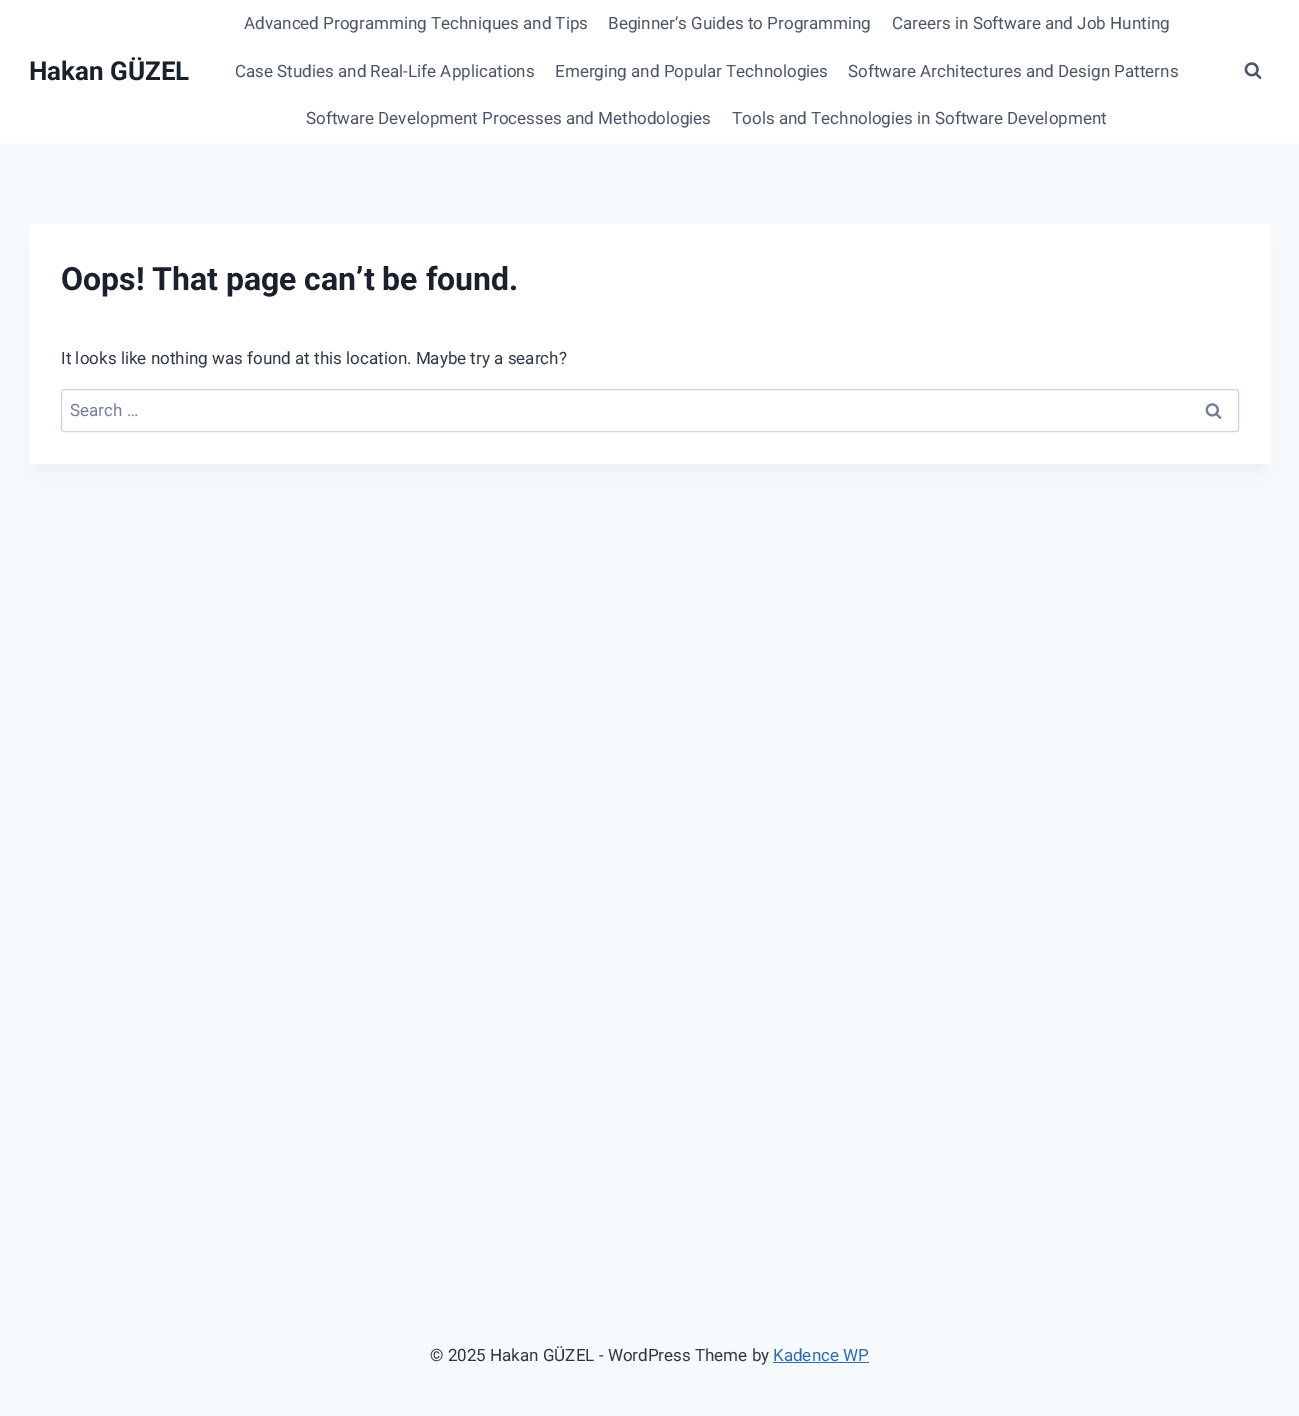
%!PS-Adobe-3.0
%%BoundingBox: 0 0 1299 1416
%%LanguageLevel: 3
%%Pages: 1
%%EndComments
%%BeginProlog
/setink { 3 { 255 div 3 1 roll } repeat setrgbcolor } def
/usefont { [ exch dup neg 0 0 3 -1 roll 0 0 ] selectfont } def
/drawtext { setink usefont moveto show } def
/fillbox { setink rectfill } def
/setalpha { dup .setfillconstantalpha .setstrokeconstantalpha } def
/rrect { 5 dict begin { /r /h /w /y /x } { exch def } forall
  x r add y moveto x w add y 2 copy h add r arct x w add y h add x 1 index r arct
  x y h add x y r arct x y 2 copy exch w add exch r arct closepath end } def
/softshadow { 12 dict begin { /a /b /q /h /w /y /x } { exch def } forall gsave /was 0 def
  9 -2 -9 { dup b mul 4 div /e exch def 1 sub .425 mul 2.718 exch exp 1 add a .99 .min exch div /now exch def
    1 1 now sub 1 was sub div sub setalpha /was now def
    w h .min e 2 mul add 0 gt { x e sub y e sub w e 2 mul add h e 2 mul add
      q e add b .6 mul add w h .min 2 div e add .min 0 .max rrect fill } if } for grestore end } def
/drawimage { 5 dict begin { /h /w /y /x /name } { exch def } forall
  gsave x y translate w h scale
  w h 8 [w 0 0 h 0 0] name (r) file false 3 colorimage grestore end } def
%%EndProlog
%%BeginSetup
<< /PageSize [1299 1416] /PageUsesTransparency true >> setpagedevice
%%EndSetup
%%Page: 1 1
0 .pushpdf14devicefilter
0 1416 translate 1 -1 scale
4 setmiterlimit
0 0 1299 1416 247 250 252 fillbox
0 0 1299 143 255 255 255 fillbox
(Hakan GÜZEL) 29 80 /Roboto-Bold 26 26 32 44 drawtext
(Advanced Programming Techniques and Tips) 244 29 /Roboto-Regular 17 74 85 104 drawtext
(Beginner’s Guides to Programming) 608 29 /Roboto-Regular 17 74 85 104 drawtext
(Careers in Software and Job Hunting) 892 29 /Roboto-Regular 17 74 85 104 drawtext
(Case Studies and Real-Life Applications) 235 77 /Roboto-Regular 17 74 85 104 drawtext
(Emerging and Popular Technologies) 555 77 /Roboto-Regular 17 74 85 104 drawtext
(Software Architectures and Design Patterns) 848 77 /Roboto-Regular 17 74 85 104 drawtext
(Software Development Processes and Methodologies) 306 124 /Roboto-Regular 17 74 85 104 drawtext
(Tools and Technologies in Software Development) 732 124 /Roboto-Regular 17 74 85 104 drawtext
(assets/img1.rgb) 1244 62 18 17 drawimage
0 0 0 setink
39 248 1222 221 0 12.5 0.05 softshadow
255 255 255 setink
29 223 1242 241 4 rrect fill
(Oops! That page can’t be found.) 61 290 /Roboto-Bold 32 26 32 44 drawtext
(It looks like nothing was found at this location. Maybe try a search?) 61 364 /Roboto-Regular 17 45 55 72 drawtext
203 213 224 setink
61.5 389.5 1177 42 2.5 rrect stroke
(Search …) 70 416 /Roboto-Regular 17 113 128 150 drawtext
(assets/img2.rgb) 1205 403 17 16 drawimage
(© 2025 Hakan GÜZEL - WordPress Theme by) 430 1361 /Roboto-Regular 17 45 55 72 drawtext
(Kadence WP) 773 1361 /Roboto-Regular 17 43 108 176 drawtext
773 1362 96 1 43 108 176 fillbox
.poppdf14devicefilter showpage
%%EOF
